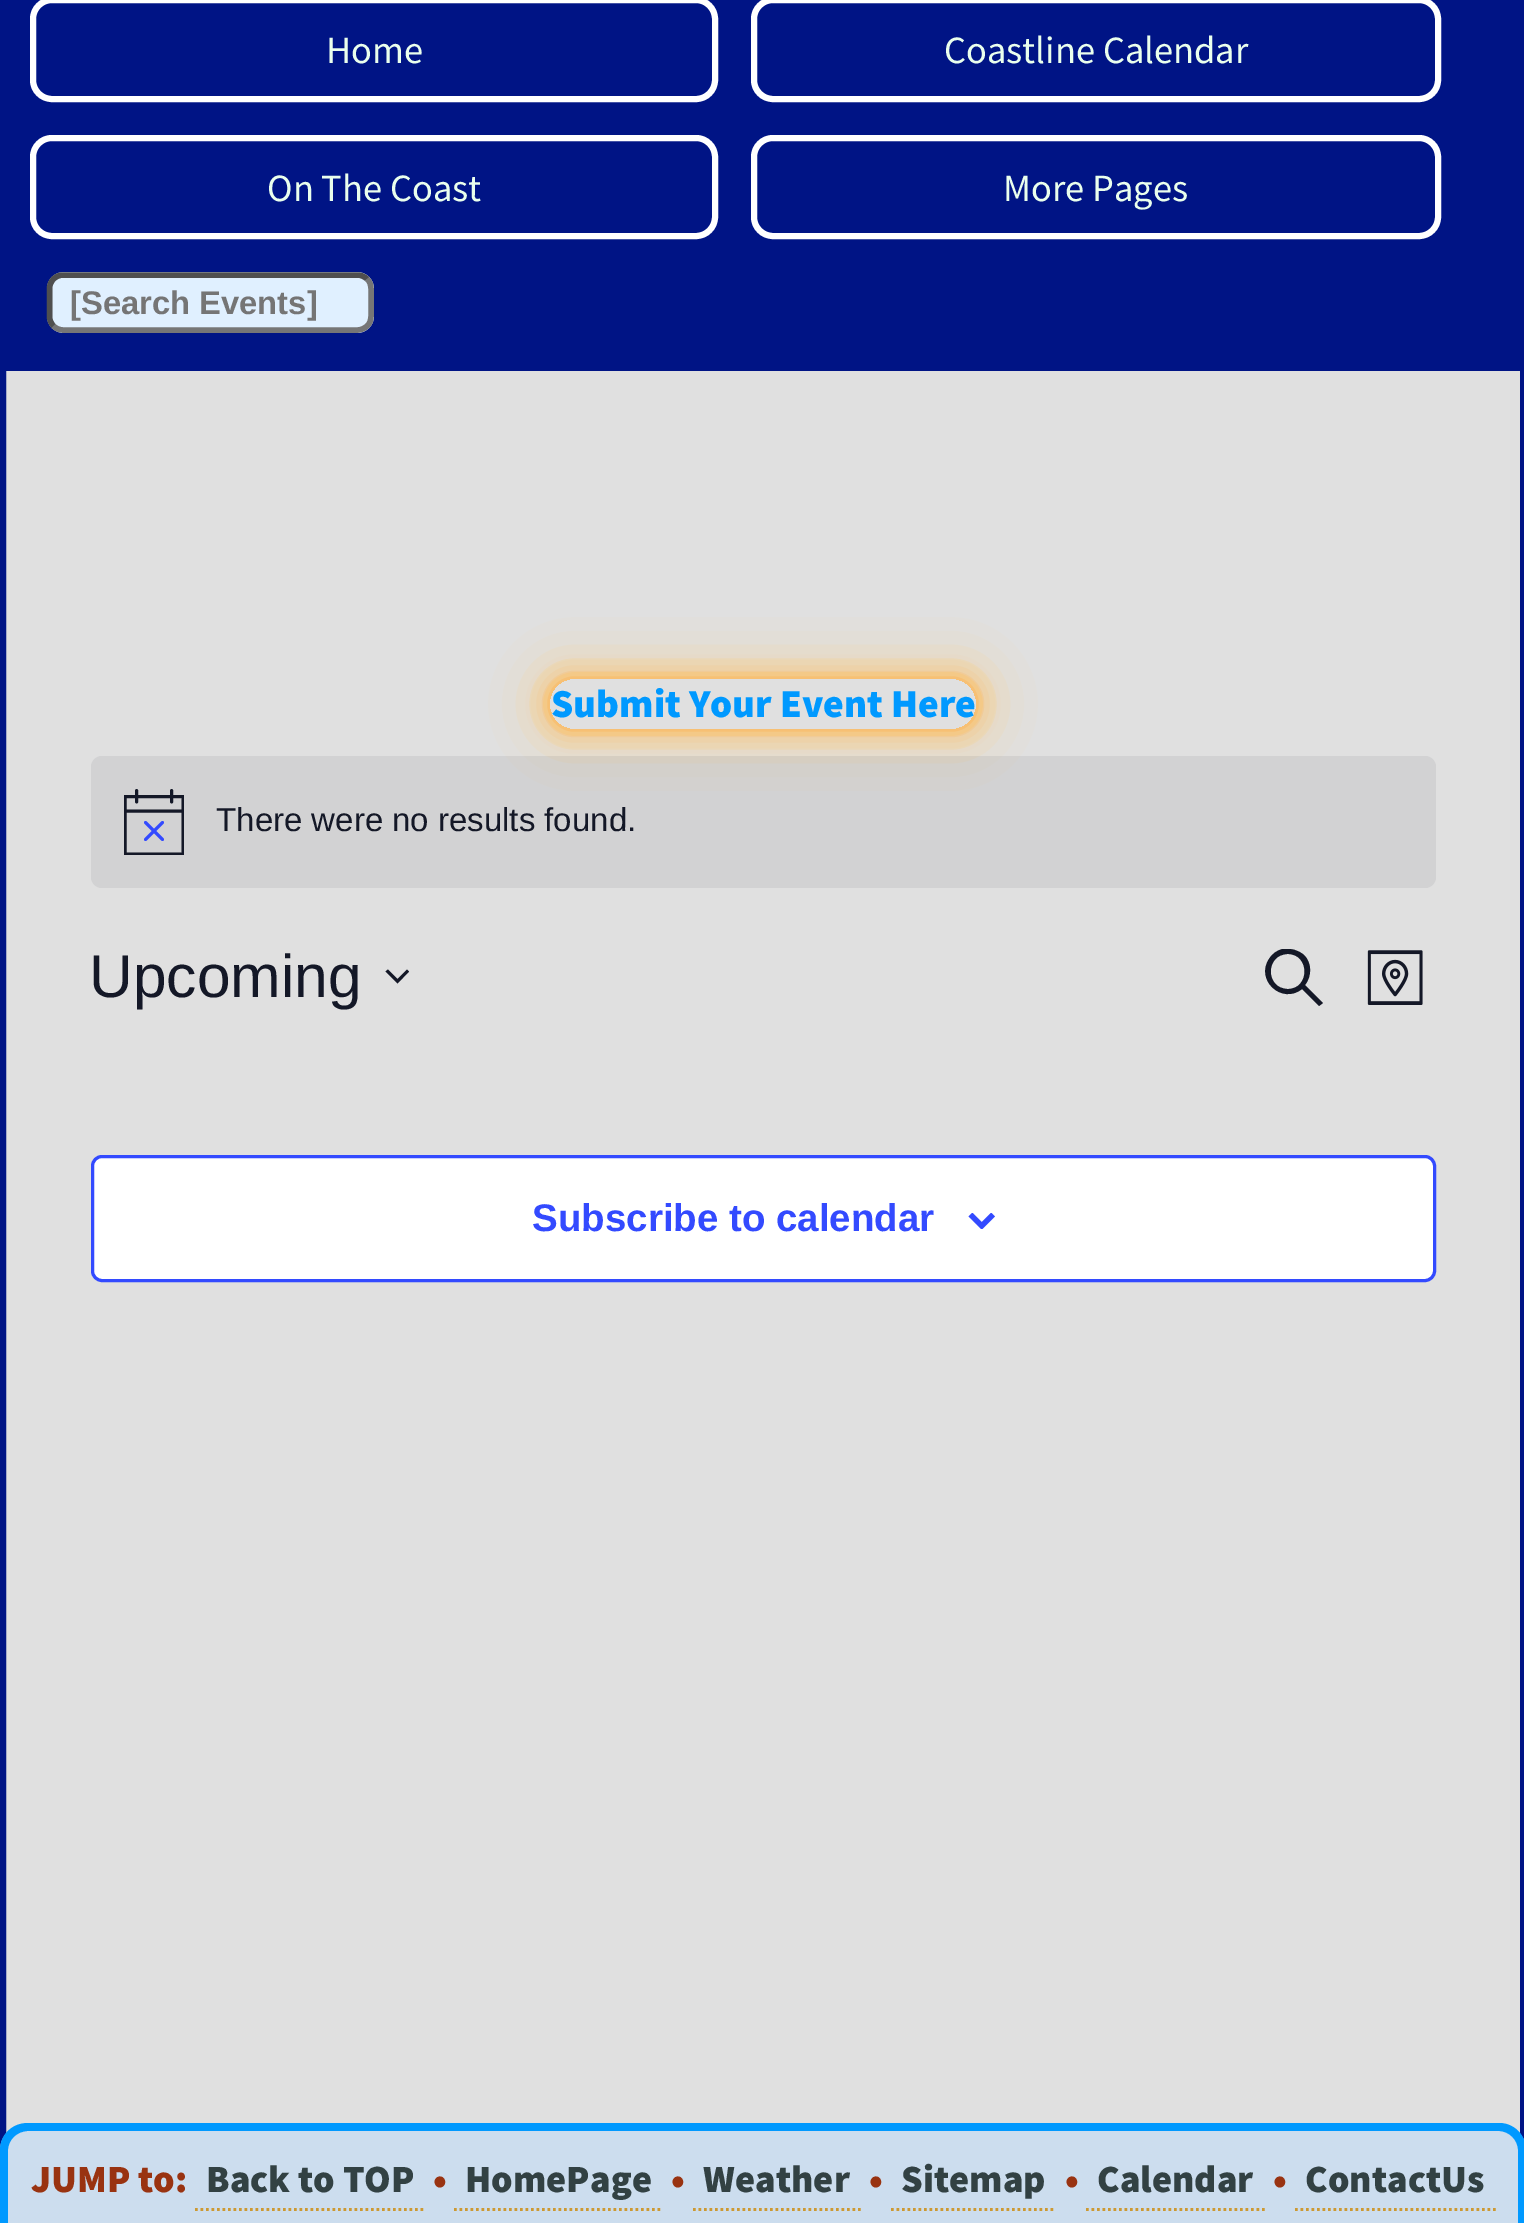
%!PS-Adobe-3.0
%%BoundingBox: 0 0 1524 2223
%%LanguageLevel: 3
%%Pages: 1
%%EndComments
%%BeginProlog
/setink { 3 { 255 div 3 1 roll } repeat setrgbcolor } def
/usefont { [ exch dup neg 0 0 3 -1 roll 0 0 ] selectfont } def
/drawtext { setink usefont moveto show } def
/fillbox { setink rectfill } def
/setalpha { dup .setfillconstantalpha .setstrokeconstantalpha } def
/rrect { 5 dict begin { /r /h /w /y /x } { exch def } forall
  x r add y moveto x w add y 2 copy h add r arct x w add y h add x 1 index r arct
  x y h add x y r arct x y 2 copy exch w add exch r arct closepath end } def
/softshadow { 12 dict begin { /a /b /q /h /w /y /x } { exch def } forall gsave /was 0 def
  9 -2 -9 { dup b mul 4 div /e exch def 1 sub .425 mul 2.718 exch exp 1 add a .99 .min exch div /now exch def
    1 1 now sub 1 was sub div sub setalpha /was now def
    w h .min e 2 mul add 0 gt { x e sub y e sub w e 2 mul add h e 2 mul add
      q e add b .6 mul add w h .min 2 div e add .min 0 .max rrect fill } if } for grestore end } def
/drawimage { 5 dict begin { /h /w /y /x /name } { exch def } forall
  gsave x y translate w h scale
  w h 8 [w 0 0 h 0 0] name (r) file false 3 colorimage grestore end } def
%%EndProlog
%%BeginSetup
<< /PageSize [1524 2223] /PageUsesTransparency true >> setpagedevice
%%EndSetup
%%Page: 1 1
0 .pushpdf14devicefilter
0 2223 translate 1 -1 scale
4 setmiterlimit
0 0 1524 2223 224 224 224 fillbox
0 20 133 setink
6 setlinewidth
3 -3 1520 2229 rectstroke
6 0 1514 371 0 20 133 fillbox
255 255 255 setink
33 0 682 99 19 rrect stroke
(Home) 326 63 /SourceSansPro-Regular 38.5 234 255 237 drawtext
255 255 255 setink
754 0 684 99 19 rrect stroke
(Coastline Calendar) 944 63 /SourceSansPro-Regular 38.5 234 255 237 drawtext
255 255 255 setink
33 138 682 98 19 rrect stroke
(On The Coast) 267 201 /SourceSansPro-Regular 38.5 234 255 237 drawtext
255 255 255 setink
754 138 684 98 19 rrect stroke
(More Pages) 1003 201 /SourceSansPro-Regular 38.5 234 255 237 drawtext
224 240 255 setink
47 272 327 61 17 rrect fill
118 118 118 setink
5.5 setlinewidth
367 279 moveto 370 281.5 371 285 371 289 curveto 371 316 lineto 371 320 370 323.5 367 326 curveto 364.5 328.5 361 330 357.5 330 curveto 63 330 lineto 59.5 330 56 328.5 53.5 326 curveto stroke
79 79 79 setink
53.5 326 moveto 51 323.5 49.5 320 49.5 316 curveto 49.5 289 lineto 49.5 285 51 281.5 53.5 279 curveto 56 276.5 59.5 275 63 275 curveto 357.5 275 lineto 361 275 364.5 276.5 367 279 curveto stroke
([Search Events]) 70 314 /LiberationSans-Bold 32.75 117 117 117 drawtext
gsave
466 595 moveto 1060 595 lineto 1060 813 lineto 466 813 lineto closepath 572 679 moveto 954 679 lineto 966 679 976 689 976 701 curveto 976 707 lineto 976 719 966 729 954 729 curveto 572 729 lineto 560 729 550 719 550 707 curveto 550 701 lineto 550 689 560 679 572 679 curveto closepath eoclip newpath
255 204 102 setink
550 679 426 50 22 27.5 1 softshadow
grestore
gsave
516 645 moveto 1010 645 lineto 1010 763 lineto 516 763 lineto closepath 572 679 moveto 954 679 lineto 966 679 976 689 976 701 curveto 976 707 lineto 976 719 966 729 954 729 curveto 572 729 lineto 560 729 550 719 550 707 curveto 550 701 lineto 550 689 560 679 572 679 curveto closepath eoclip newpath
255 170 68 setink
550 679 426 50 22 11 1 softshadow
grestore
(Submit Your Event Here) 551 717 /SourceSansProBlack-Black 39.6 0 153 255 drawtext
0.07 setalpha
20 24 39 setink
91 756 1345 132 11 rrect fill
gsave
124 789 60 66 rectclip
1 setalpha
2.9 setlinewidth
125 796.5 moveto 183 796.5 lineto 183 854 lineto 125 854 lineto closepath stroke
grestore
1 setalpha
51 74 255 setink
2.9 setlinewidth
1 setlinecap
145.5 822.5 moveto 162.5 839.5 lineto 162.5 822.5 moveto 145.5 839.5 lineto stroke
20 24 39 setink
136.5 790.5 moveto 136.5 802 lineto 171.5 790.5 moveto 171.5 802 lineto stroke
gsave
124 789 60 66 rectclip
2 setlinecap
125 811 moveto 183 811 lineto stroke
grestore
(There were no results found.) 216 831 /LiberationSans-Regular 33 20 24 39 drawtext
(Upcoming) 89 997 /LiberationSans-Regular 60.5 20 24 39 drawtext
388 969.5 moveto 397.5 979 lineto 407 969.5 lineto 409 971.5 lineto 397.5 983.5 lineto 385.5 971.5 lineto closepath eofill
gsave
1265 949 58 58 rectclip
1305 985 moveto 1323 1003 lineto 1319 1006 lineto 1302 989 lineto 1282 1005 1255 980 1269 959 curveto 1272 954 1277 950 1283 949 curveto 1291 948 1298 950 1304 955 curveto 1312 963 1312 976 1305 985 curveto closepath 1288 954 moveto 1265 954 1265 989 1288 989 curveto 1310 989 1310 954 1288 954 curveto closepath eofill
grestore
(assets/img1.rgb) 1367 950 56 55 drawimage
255 255 255 setink
92.5 1156.5 1342 124 9.5 rrect gsave fill grestore
51 74 255 setink
3 setlinewidth
0 setlinecap
stroke
(Subscribe to calendar) 532 1231 /LiberationSans-Bold 38.5 51 74 255 drawtext
(assets/img2.rgb) 968 1213 27 16 drawimage
204 221 238 setink
28 2123 moveto 1498 2123 lineto 1513.5 2123 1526 2135.5 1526 2151 curveto 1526 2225 lineto 0 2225 lineto 0 2151 lineto 0 2135.5 12.5 2123 28 2123 curveto closepath fill
0 153 255 setink
28 2123 moveto 1499 2123 lineto 1514 2123 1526 2135 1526 2150 curveto 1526 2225 lineto 0 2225 lineto 0 2150 lineto 0 2135 12 2123 28 2123 curveto closepath 28 2131 moveto 1499 2131 lineto 1509 2131 1518 2140 1518 2150 curveto 1518 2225 lineto 8 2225 lineto 8 2150 lineto 8 2140 17 2131 28 2131 curveto closepath eofill
(JUMP to:) 31 2192 /SourceSansProBlack-Black 38.5 153 51 17 drawtext
(Back to TOP) 206 2192 /SourceSansProBlack-Black 38.5 50 65 67 drawtext
204 153 51 setink
2.8 setlinewidth
[2.75 2.75] 0 setdash
195 2209.5 moveto 426 2209.5 lineto stroke
(•) 433 2192 /SourceSansProBlack-Black 38.5 153 51 17 drawtext
(HomePage) 465 2192 /SourceSansProBlack-Black 38.5 50 65 67 drawtext
204 153 51 setink
454 2209.5 moveto 663 2209.5 lineto stroke
(•) 671 2192 /SourceSansProBlack-Black 38.5 153 51 17 drawtext
(Weather) 703 2192 /SourceSansProBlack-Black 38.5 50 65 67 drawtext
204 153 51 setink
693 2209.5 moveto 861 2209.5 lineto stroke
(•) 869 2192 /SourceSansProBlack-Black 38.5 153 51 17 drawtext
(Sitemap) 901 2192 /SourceSansProBlack-Black 38.5 50 65 67 drawtext
204 153 51 setink
891 2209.5 moveto 1056 2209.5 lineto stroke
(•) 1065 2192 /SourceSansProBlack-Black 38.5 153 51 17 drawtext
(Calendar) 1097 2192 /SourceSansProBlack-Black 38.5 50 65 67 drawtext
204 153 51 setink
1086 2209.5 moveto 1265 2209.5 lineto stroke
(•) 1273 2192 /SourceSansProBlack-Black 38.5 153 51 17 drawtext
(ContactUs) 1305 2192 /SourceSansProBlack-Black 38.5 50 65 67 drawtext
204 153 51 setink
1295 2209.5 moveto 1496 2209.5 lineto stroke
.poppdf14devicefilter showpage
%%EOF
